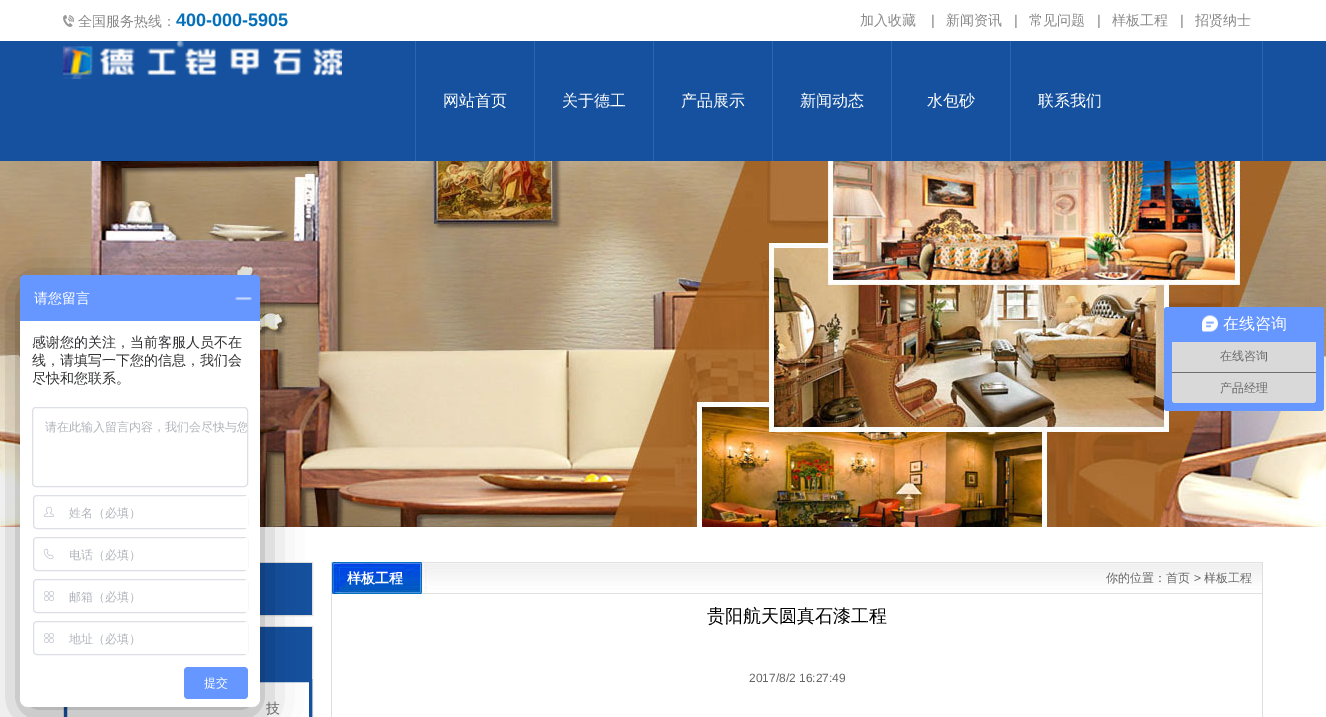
%!PS-Adobe-3.0
%%BoundingBox: 0 0 1326 717
%%LanguageLevel: 3
%%Pages: 1
%%EndComments
%%BeginProlog
/setink { 3 { 255 div 3 1 roll } repeat setrgbcolor } def
/usefont { [ exch dup neg 0 0 3 -1 roll 0 0 ] selectfont } def
/drawtext { setink usefont moveto show } def
/fillbox { setink rectfill } def
/setalpha { dup .setfillconstantalpha .setstrokeconstantalpha } def
/rrect { 5 dict begin { /r /h /w /y /x } { exch def } forall
  x r add y moveto x w add y 2 copy h add r arct x w add y h add x 1 index r arct
  x y h add x y r arct x y 2 copy exch w add exch r arct closepath end } def
/softshadow { 12 dict begin { /a /b /q /h /w /y /x } { exch def } forall gsave /was 0 def
  9 -2 -9 { dup b mul 4 div /e exch def 1 sub .425 mul 2.718 exch exp 1 add a .99 .min exch div /now exch def
    1 1 now sub 1 was sub div sub setalpha /was now def
    w h .min e 2 mul add 0 gt { x e sub y e sub w e 2 mul add h e 2 mul add
      q e add b .6 mul add w h .min 2 div e add .min 0 .max rrect fill } if } for grestore end } def
/drawimage { 5 dict begin { /h /w /y /x /name } { exch def } forall
  gsave x y translate w h scale
  w h 8 [w 0 0 h 0 0] name (r) file false 3 colorimage grestore end } def
%%EndProlog
%%BeginSetup
<< /PageSize [1326 717] /PageUsesTransparency true >> setpagedevice
%%EndSetup
%%Page: 1 1
0 .pushpdf14devicefilter
0 717 translate 1 -1 scale
4 setmiterlimit
0 0 1326 717 255 255 255 fillbox
(assets/img1.rgb) 63 15 11 12 drawimage
(全国服务热线：) 78 26 /WenQuanYiZenHei-Medium 14 136 136 136 drawtext
(400-000-5905) 176 26 /LiberationSans-Bold 18 5 112 185 drawtext
(加入收藏) 860 25 /WenQuanYiZenHei-Medium 14 136 136 136 drawtext
(|) 931 25 /LiberationSans-Regular 14 136 136 136 drawtext
(新闻资讯) 946 25 /WenQuanYiZenHei-Medium 14 136 136 136 drawtext
(|) 1014 25 /LiberationSans-Regular 14 136 136 136 drawtext
(常见问题) 1029 25 /WenQuanYiZenHei-Medium 14 136 136 136 drawtext
(|) 1097 25 /LiberationSans-Regular 14 136 136 136 drawtext
(样板工程) 1112 25 /WenQuanYiZenHei-Medium 14 136 136 136 drawtext
(|) 1180 25 /LiberationSans-Regular 14 136 136 136 drawtext
(招贤纳士) 1195 25 /WenQuanYiZenHei-Medium 14 136 136 136 drawtext
0 41 1326 120 21 81 159 fillbox
(assets/img2.rgb) 63 41 279 38 drawimage
1262 41 1 120 39 101 181 fillbox
415 41 1 120 39 101 181 fillbox
(网站首页) 443 106 /WenQuanYiZenHei-Medium 16 255 255 255 drawtext
534 41 1 120 39 101 181 fillbox
(关于德工) 562 106 /WenQuanYiZenHei-Medium 16 255 255 255 drawtext
653 41 1 120 39 101 181 fillbox
(产品展示) 681 106 /WenQuanYiZenHei-Medium 16 255 255 255 drawtext
772 41 1 120 39 101 181 fillbox
(新闻动态) 800 106 /WenQuanYiZenHei-Medium 16 255 255 255 drawtext
891 41 1 120 39 101 181 fillbox
(水包砂) 927 106 /WenQuanYiZenHei-Medium 16 255 255 255 drawtext
1010 41 1 120 39 101 181 fillbox
(联系我们) 1038 106 /WenQuanYiZenHei-Medium 16 255 255 255 drawtext
(assets/img8.rgb) 0 161 1326 366 drawimage
222 222 220 setink
63.5 562.5 249 53 rectstroke
260 563 52 52 21 81 159 fillbox
222 222 220 setink
63.5 626.5 249 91 rectstroke
260 627 52 52 21 81 159 fillbox
3 setlinewidth
65.5 680.5 245 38 rectstroke
0 0 0 setink
20 283 240 432 8 20 0.4 softshadow
255 255 255 setink
20 275 240 432 8 rrect fill
102 150 255 setink
25 275 moveto 255 275 lineto 258 275 260 277 260 280 curveto 260 321 lineto 20 321 lineto 20 280 lineto 20 277 22 275 25 275 curveto closepath fill
(请您留言) 34 303 /WenQuanYiZenHei-Medium 14 255 255 255 drawtext
(assets/img3.rgb) 235 297 17 4 drawimage
(感谢您的关注，当前客服人员不在) 32 347 /WenQuanYiZenHei-Medium 14 48 49 51 drawtext
(线，请填写一下您的信息，我们会) 32 365 /WenQuanYiZenHei-Medium 14 48 49 51 drawtext
(尽快和您联系。) 32 383 /WenQuanYiZenHei-Medium 14 48 49 51 drawtext
220 223 230 setink
1 setlinewidth
32.5 407.5 215 79 3.5 rrect stroke
gsave
33 408 214 78 3 rrect clip newpath
(请在此输入留言内容，我们会尽快与您) 45 431 /WenQuanYiZenHei-Medium 12 176 180 187 drawtext
grestore
33.5 495.5 214 33 3.5 rrect stroke
(assets/img4.rgb) 43 506 12 11 drawimage
244 496 4 32 255 255 255 fillbox
(姓名（必填）) 69 517 /WenQuanYiZenHei-Medium 12 176 180 187 drawtext
220 223 230 setink
33.5 537.5 214 33 3.5 rrect stroke
(assets/img5.rgb) 43 548 11 12 drawimage
244 538 4 32 255 255 255 fillbox
(电话（必填）) 69 559 /WenQuanYiZenHei-Medium 12 176 180 187 drawtext
220 223 230 setink
33.5 579.5 214 33 3.5 rrect stroke
(assets/img6.rgb) 44 591 10 10 drawimage
244 580 4 32 255 255 255 fillbox
(邮箱（必填）) 69 601 /WenQuanYiZenHei-Medium 12 176 180 187 drawtext
220 223 230 setink
33.5 621.5 214 33 3.5 rrect stroke
(assets/img6.rgb) 44 633 10 10 drawimage
244 622 4 32 255 255 255 fillbox
gsave
69 631 181 17 rectclip
(地址（必填）) 69 643 /WenQuanYiZenHei-Medium 12 176 180 187 drawtext
grestore
102 150 255 setink
184 667 64 32 4 rrect fill
(提交) 204 687 /WenQuanYiZenHei-Medium 12 255 255 255 drawtext
102 150 255 setink
1164 307 160 104 3 rrect fill
(assets/img7.rgb) 1202 315 16 17 drawimage
(在线咨询) 1223 329 /WenQuanYiZenHei-Medium 16 255 255 255 drawtext
1172 342 144 30 217 217 217 fillbox
1172 372 144 1 109 109 109 fillbox
(在线咨询) 1220 360 /WenQuanYiZenHei-Medium 12 102 102 102 drawtext
217 217 217 setink
1172 373 moveto 1316 373 lineto 1316 400 lineto 1316 401.5 1314.5 403 1313 403 curveto 1175 403 lineto 1173.5 403 1172 401.5 1172 400 curveto closepath fill
(产品经理) 1220 392 /WenQuanYiZenHei-Medium 12 102 102 102 drawtext
1262 562 1 155 222 222 220 fillbox
331 562 1 155 222 222 220 fillbox
(assets/img9.rgb) 332 562 930 32 drawimage
(样板工程) 347 583 /WenQuanYiZenHei-Bold 14 255 255 255 drawtext
(你的位置：首页) 1106 582 /WenQuanYiZenHei-Medium 12 102 102 102 drawtext
(>) 1194 582 /LiberationSans-Regular 12 102 102 102 drawtext
(样板工程) 1204 582 /WenQuanYiZenHei-Medium 12 102 102 102 drawtext
(贵阳航天圆真石漆工程) 707 622 /WenQuanYiZenHei-Medium 18 0 0 0 drawtext
(2017/8/2 16:27:49) 749 682 /LiberationSans-Regular 12 102 102 102 drawtext
(技) 266 713 /WenQuanYiZenHei-Medium 14 102 102 102 drawtext
.poppdf14devicefilter showpage
%%EOF
